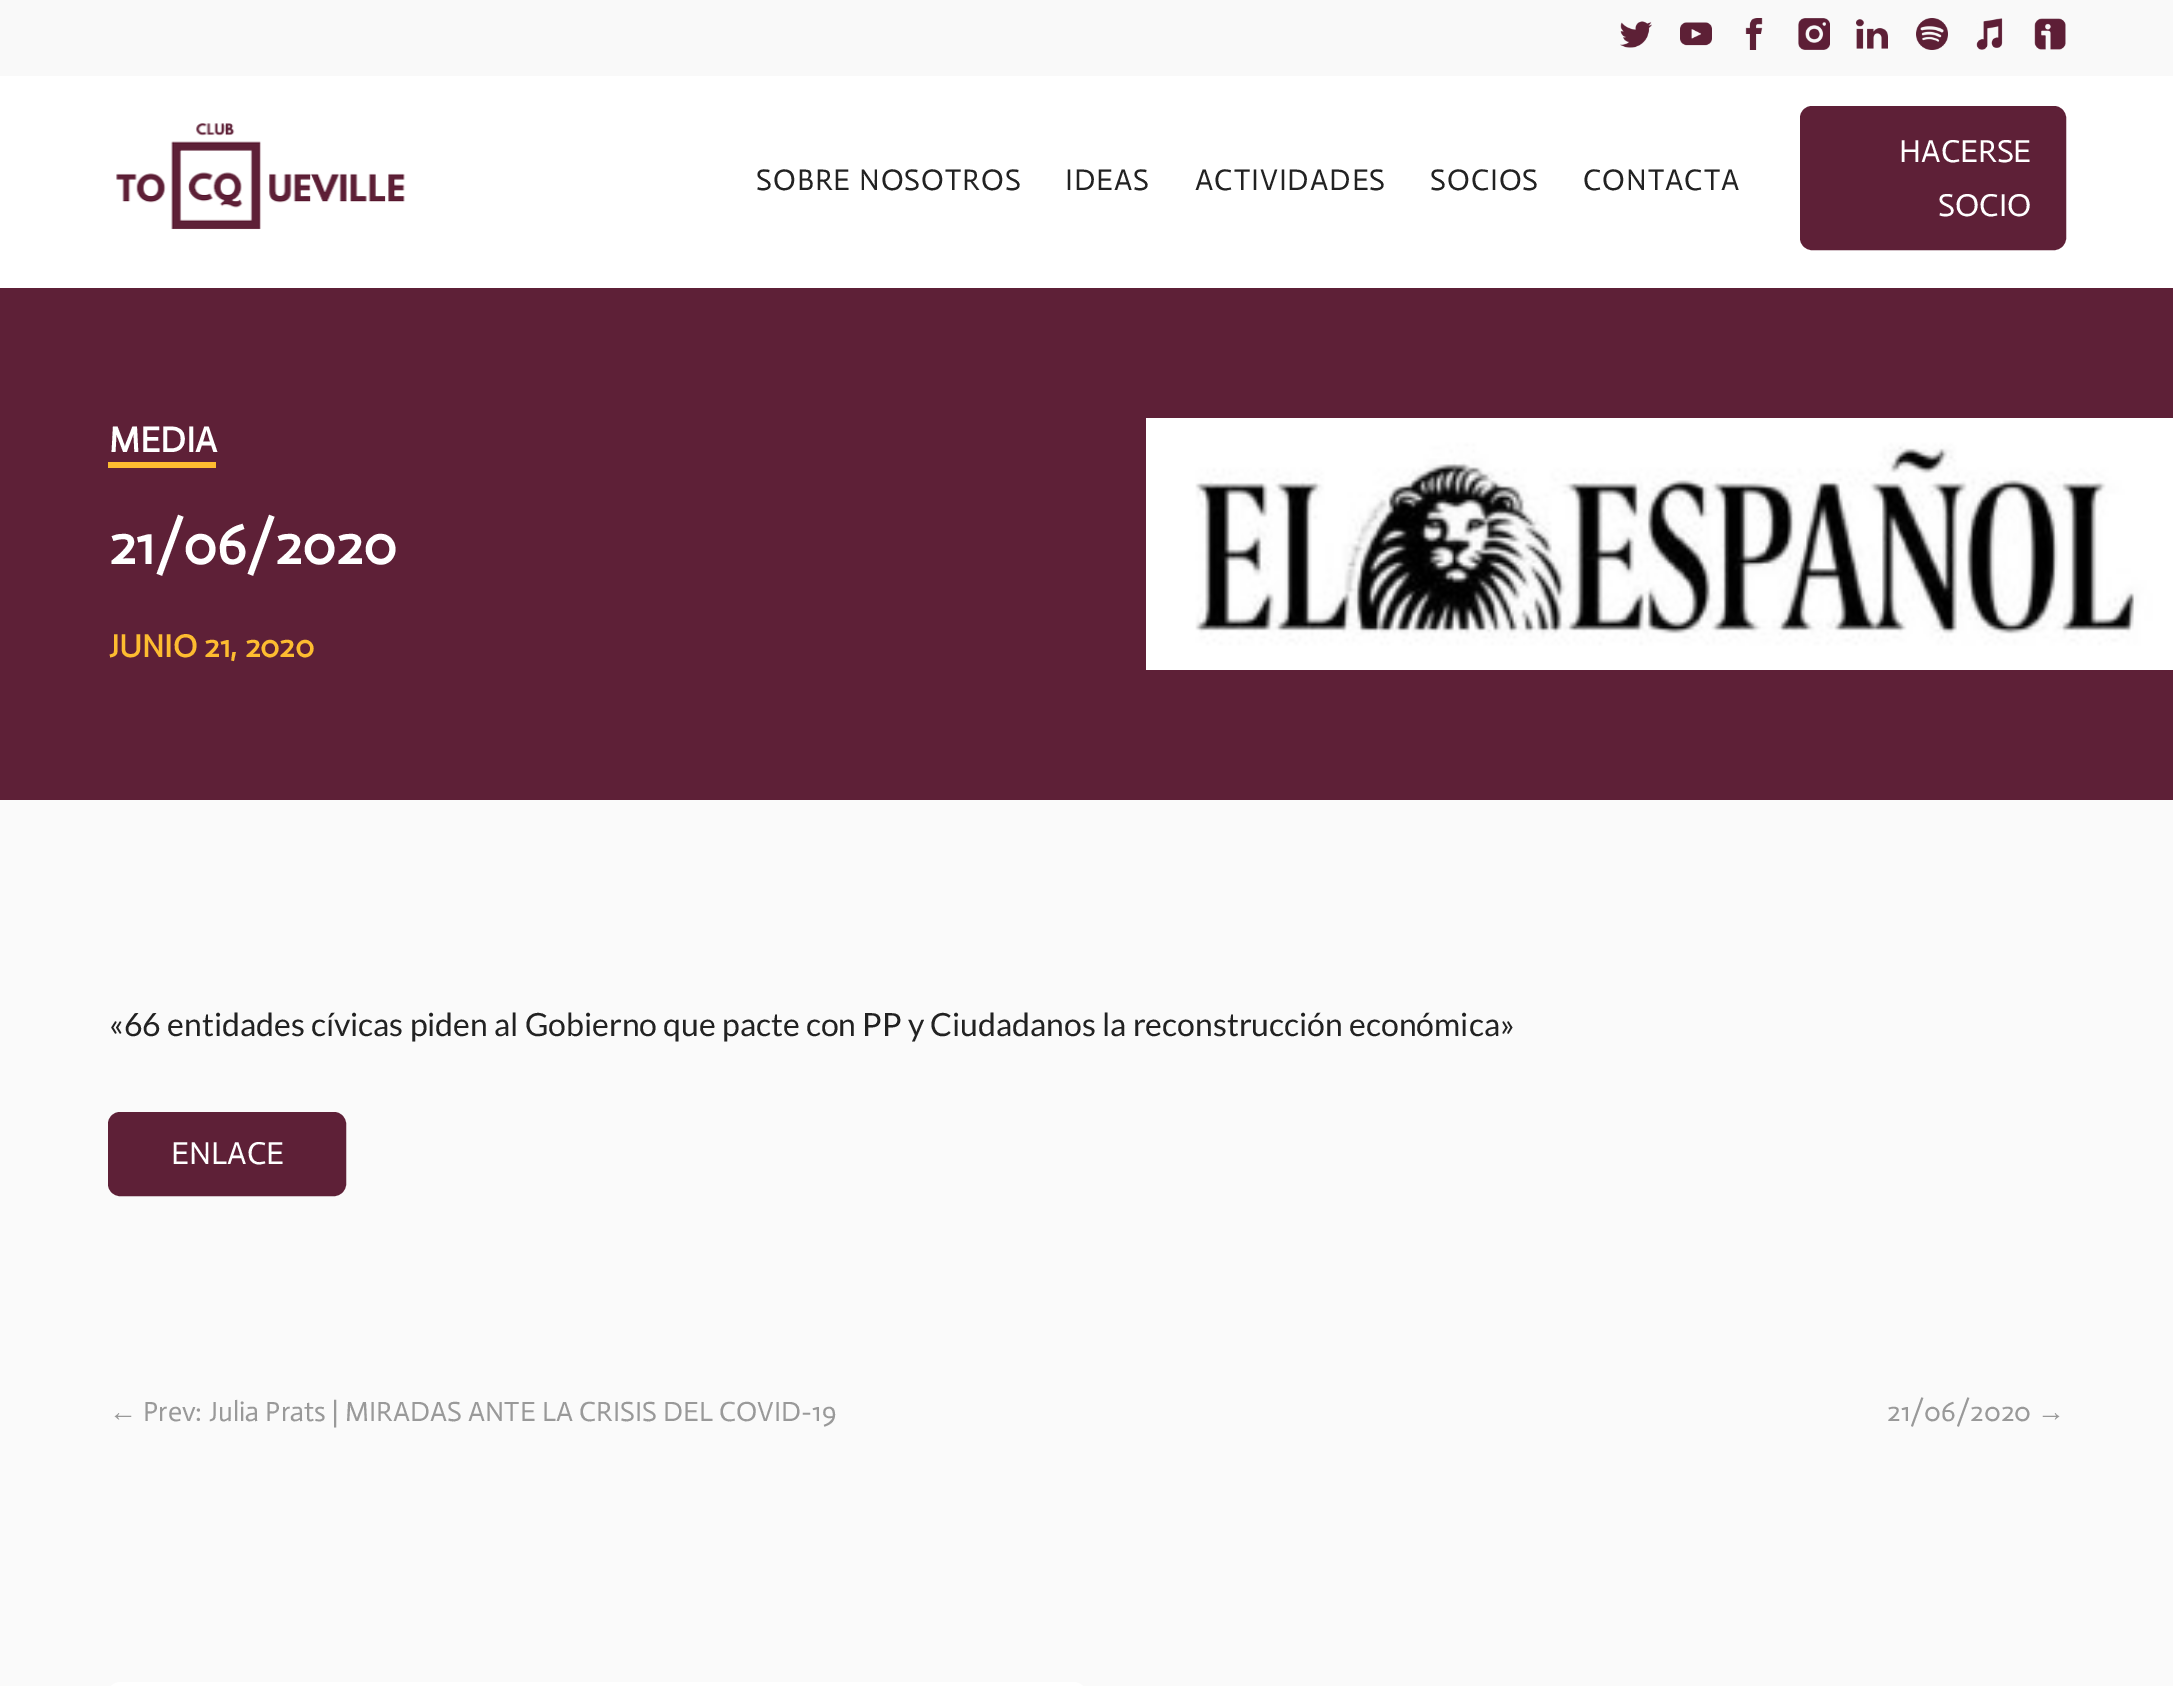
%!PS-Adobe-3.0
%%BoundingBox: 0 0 2173 1686
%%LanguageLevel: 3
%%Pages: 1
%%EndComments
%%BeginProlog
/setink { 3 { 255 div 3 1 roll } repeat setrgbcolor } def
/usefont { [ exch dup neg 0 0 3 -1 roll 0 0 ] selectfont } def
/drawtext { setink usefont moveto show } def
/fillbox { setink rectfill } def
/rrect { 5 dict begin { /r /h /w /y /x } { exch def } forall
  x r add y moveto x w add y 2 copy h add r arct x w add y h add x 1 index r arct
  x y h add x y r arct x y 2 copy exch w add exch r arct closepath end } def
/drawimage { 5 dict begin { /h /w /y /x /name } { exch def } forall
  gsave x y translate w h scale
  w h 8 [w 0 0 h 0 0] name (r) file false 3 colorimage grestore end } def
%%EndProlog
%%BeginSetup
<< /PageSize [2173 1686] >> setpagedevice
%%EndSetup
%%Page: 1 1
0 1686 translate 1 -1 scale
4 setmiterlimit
0 0 2173 1686 255 255 255 fillbox
0 0 2173 76 249 249 249 fillbox
(assets/img1.rgb) 1620 21 32 27 drawimage
(assets/img2.rgb) 1680 22 32 24 drawimage
(assets/img3.rgb) 1745 18 18 32 drawimage
(assets/img4.rgb) 1798 18 32 32 drawimage
(assets/img5.rgb) 1856 19 32 30 drawimage
(assets/img6.rgb) 1916 18 32 32 drawimage
(assets/img7.rgb) 1976 18 27 32 drawimage
(assets/img8.rgb) 2034 18 32 32 drawimage
(assets/img9.rgb) 116 123 289 107 drawimage
/Actor-Regular 30 usefont
34 34 34 setink
756 190 moveto 1 0 (SOBRE NOSOTROS) ashow
1065 190 moveto 1 0 (IDEAS) ashow
1195 190 moveto 1 0 (ACTIVIDADES) ashow
1430 190 moveto 1 0 (SOCIOS) ashow
1583 190 moveto 1 0 (CONTACTA) ashow
94 32 55 setink
1801 107 264 142 11 rrect gsave fill grestore
2 setlinewidth
stroke
(HACERSE) 1899 162 /Actor-Regular 32 255 255 255 drawtext
(SOCIO) 1938 216 /Actor-Regular 32 255 255 255 drawtext
0 288 2173 512 94 32 55 fillbox
(MEDIA) 109 452 /Actor-Bold 36 255 255 255 drawtext
108 462 108 6 253 188 48 fillbox
(21/06/2020) 109 564 /Actor-Bold 56 255 255 255 drawtext
(JUNIO 21, 2020) 109 657 /Actor-Bold 32 253 188 48 drawtext
(assets/img10.rgb) 1146 418 1027 252 drawimage
0 800 2173 886 250 250 250 fillbox
(«66 entidades cívicas piden al Gobierno que pacte con PP y Ciudadanos la reconstrucción económica») 109 1036 /Lato-Regular 32 34 34 34 drawtext
94 32 55 setink
109 1113 236 82 11 rrect gsave fill grestore
stroke
(ENLACE) 171 1164 /Actor-Regular 32 255 255 255 drawtext
(←) 109 1421 /LiberationSans-Regular 28 153 153 153 drawtext
(Prev: Julia Prats | MIRADAS ANTE LA CRISIS DEL COVID-19) 143 1421 /Actor-Regular 28 153 153 153 drawtext
(21/06/2020) 1887 1421 /Actor-Regular 28 153 153 153 drawtext
(→) 2037 1421 /LiberationSans-Regular 28 153 153 153 drawtext
255 255 255 setink
108 1682 978 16 12 rrect fill
showpage
%%EOF
